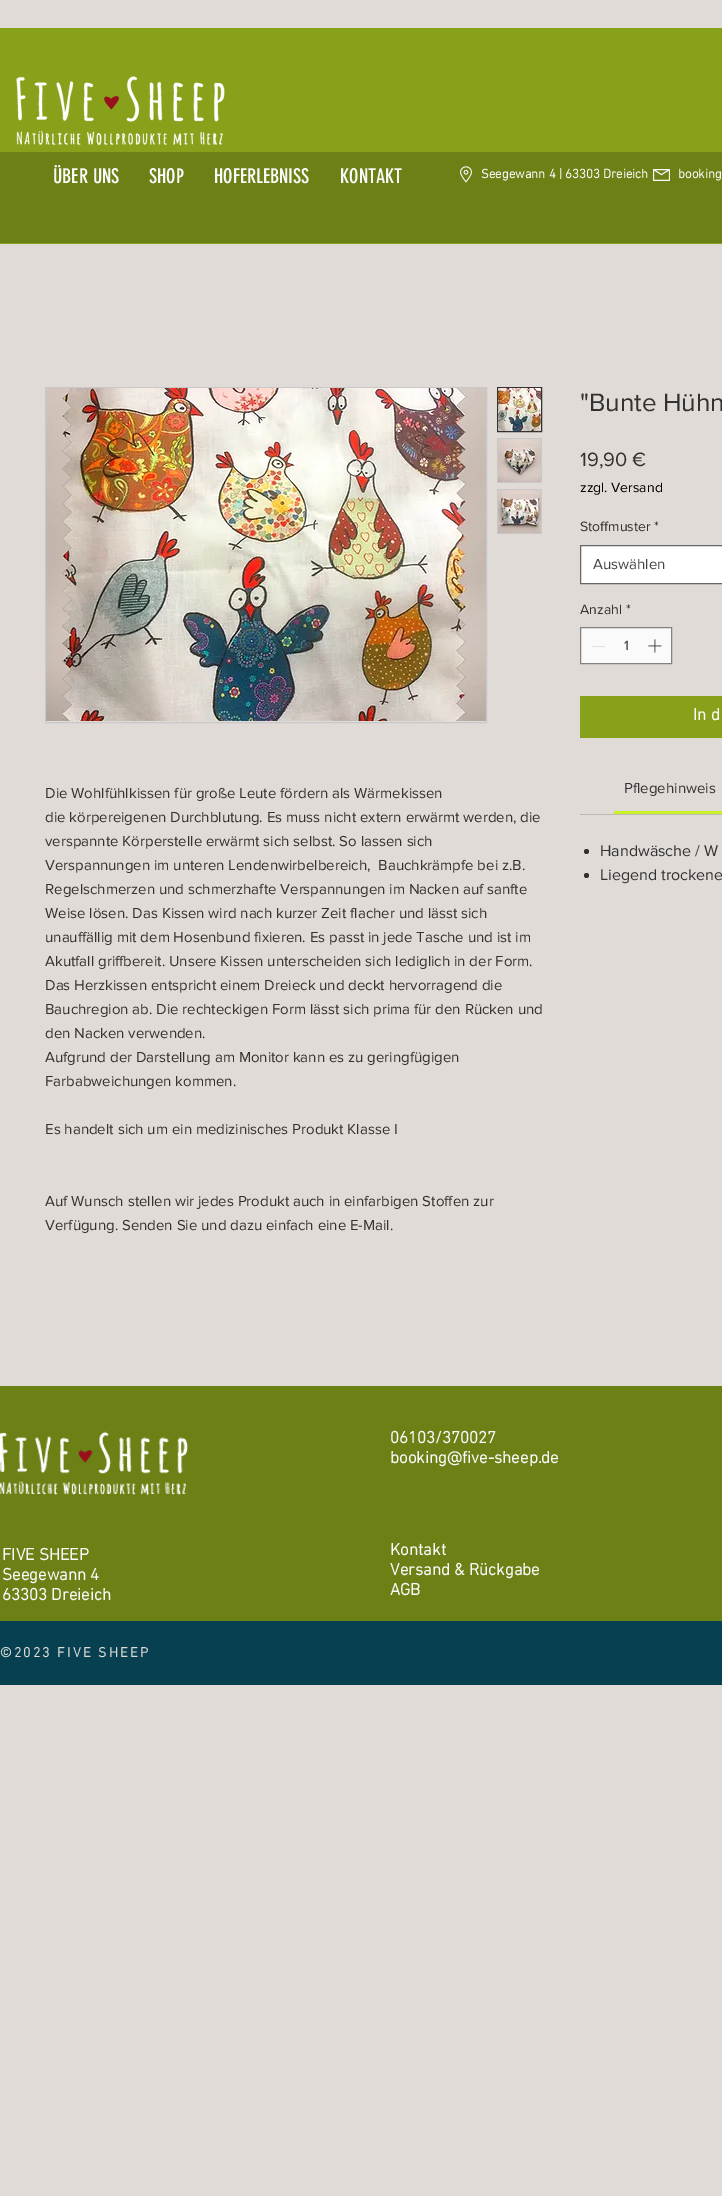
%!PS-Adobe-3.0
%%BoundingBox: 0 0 722 2196
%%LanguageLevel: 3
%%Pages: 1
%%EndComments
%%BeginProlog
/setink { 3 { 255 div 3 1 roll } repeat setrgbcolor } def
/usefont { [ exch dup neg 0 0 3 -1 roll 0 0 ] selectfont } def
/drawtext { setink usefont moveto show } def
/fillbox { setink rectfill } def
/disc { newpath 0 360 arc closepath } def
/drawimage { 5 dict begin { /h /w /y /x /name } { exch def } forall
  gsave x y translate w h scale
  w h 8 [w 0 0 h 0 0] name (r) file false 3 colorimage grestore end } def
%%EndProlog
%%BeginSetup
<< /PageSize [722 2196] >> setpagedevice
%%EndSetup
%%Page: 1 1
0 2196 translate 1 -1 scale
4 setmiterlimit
0 0 722 2196 225 219 215 fillbox
0 28 722 216 135 161 27 fillbox
(assets/img1.rgb) 15 76 210 71 drawimage
0 152 722 91 107 128 21 fillbox
(ÜBER UNS) 53 183 /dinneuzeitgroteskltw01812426-Regular 20 250 250 250 drawtext
(SHOP) 149 183 /dinneuzeitgroteskltw01812426-Regular 20 250 250 250 drawtext
(HOFERLEBNISS) 214 183 /dinneuzeitgroteskltw01812426-Regular 20 250 250 250 drawtext
(KONTAKT) 340 183 /dinneuzeitgroteskltw01812426-Regular 20 250 250 250 drawtext
(assets/img2.rgb) 460 166 12 17 drawimage
(Seegewann 4 | 63303 Dreieich) 481 178 /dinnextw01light-Bold 13 250 250 250 drawtext
(assets/img3.rgb) 653 169 17 12 drawimage
(booking) 678 178 /dinnextw01light-Bold 13 250 250 250 drawtext
("Bunte Hühn) 580 411 /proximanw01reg-Regular 26 50 50 50 drawtext
(19,90 €) 580 466 /proximanw01reg-Regular 20 50 50 50 drawtext
(zzgl. Versand) 580 492 /proximanw01reg-Regular 14 0 0 0 drawtext
(Stoffmuster) 580 531 /proximanw01reg-Regular 14 50 50 50 drawtext
(*) 654 531 /proximanw01reg-Regular 14 50 50 50 drawtext
255 255 255 setink
580.5 545.5 moveto 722.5 545.5 lineto 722.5 583.5 lineto 580.5 583.5 lineto closepath gsave fill grestore
102 102 102 setink
stroke
(Auswählen) 593 569 /proximanw01reg-Regular 15 68 68 68 drawtext
(Anzahl) 580 614 /proximanw01reg-Regular 14 50 50 50 drawtext
(*) 626 614 /proximanw01reg-Regular 14 50 50 50 drawtext
250 250 250 setink
580.5 627.5 moveto 671.5 627.5 lineto 671.5 663.5 lineto 580.5 663.5 lineto closepath gsave fill grestore
130 130 130 setink
stroke
592 646 13 1 225 225 225 fillbox
(1) 624 650 /proximanw01reg-Regular 14 50 50 50 drawtext
(assets/img4.rgb) 648 639 14 14 drawimage
580 696 142 42 135 161 27 fillbox
(In d) 693 720 /dinnextw01light-Bold 17 250 250 250 drawtext
580 814 142 1 190 185 182 fillbox
614 811 108 3 202 242 41 fillbox
(Pflegehinweis) 624 793 /proximanw01reg-Regular 15 50 50 50 drawtext
586.5 851.5 2.5 disc fill
(Handwäsche / W) 600 856 /proximanw01reg-Regular 16 50 50 50 drawtext
586.5 875.5 2.5 disc fill
(Liegend trockene) 600 880 /proximanw01reg-Regular 16 50 50 50 drawtext
200 200 200 setink
45.5 387.5 441 335 rectstroke
(assets/img5.rgb) 46 388 440 333 drawimage
50 50 50 setink
497.5 387.5 44 44 rectstroke
(assets/img6.rgb) 498 388 43 43 drawimage
497 438 45 45 200 200 200 fillbox
(assets/img7.rgb) 498 439 43 43 drawimage
497 489 45 45 200 200 200 fillbox
(assets/img8.rgb) 498 490 43 43 drawimage
(Die Wohlfühlkissen für große Leute fördern als Wärmekissen) 45 798 /proximanw01reg-Regular 15 50 50 50 drawtext
(die körpereigenen Durchblutung. Es muss nicht extern erwärmt werden, die) 45 822 /proximanw01reg-Regular 15 50 50 50 drawtext
(verspannte Körperstelle erwärmt sich selbst. So lassen sich) 45 846 /proximanw01reg-Regular 15 50 50 50 drawtext
(Verspannungen im unteren Lendenwirbelbereich,  Bauchkrämpfe bei z.B.) 45 870 /proximanw01reg-Regular 15 50 50 50 drawtext
(Regelschmerzen und schmerzhafte Verspannungen im Nacken auf sanfte) 45 894 /proximanw01reg-Regular 15 50 50 50 drawtext
(Weise lösen. Das Kissen wird nach kurzer Zeit flacher und lässt sich) 45 918 /proximanw01reg-Regular 15 50 50 50 drawtext
(unauffällig mit dem Hosenbund fixieren. Es passt in jede Tasche und ist im) 45 942 /proximanw01reg-Regular 15 50 50 50 drawtext
(Akutfall griffbereit. Unsere Kissen unterscheiden sich lediglich in der Form.) 45 966 /proximanw01reg-Regular 15 50 50 50 drawtext
(Das Herzkissen entspricht einem Dreieck und deckt hervorragend die) 45 990 /proximanw01reg-Regular 15 50 50 50 drawtext
(Bauchregion ab. Die rechteckigen Form lässt sich prima für den Rücken und) 45 1014 /proximanw01reg-Regular 15 50 50 50 drawtext
(den Nacken verwenden.) 45 1038 /proximanw01reg-Regular 15 50 50 50 drawtext
(Aufgrund der Darstellung am Monitor kann es zu geringfügigen) 45 1062 /proximanw01reg-Regular 15 50 50 50 drawtext
(Farbabweichungen kommen.) 45 1086 /proximanw01reg-Regular 15 50 50 50 drawtext
(Es handelt sich um ein medizinisches Produkt Klasse I) 45 1134 /proximanw01reg-Regular 15 50 50 50 drawtext
(Auf Wunsch stellen wir jedes Produkt auch in einfarbigen Stoffen zur) 45 1206 /proximanw01reg-Regular 15 50 50 50 drawtext
(Verfügung. Senden Sie und dazu einfach eine E-Mail.) 45 1230 /proximanw01reg-Regular 15 50 50 50 drawtext
0 1386 722 235 107 128 21 fillbox
(assets/img9.rgb) 0 1431 189 65 drawimage
(06103/370027) 390 1443 /dinnextw01light-Bold 17 250 250 250 drawtext
(booking@five-sheep.de) 390 1463 /dinnextw01light-Bold 17 250 250 250 drawtext
(FIVE SHEEP) 2 1560 /dinnextw01light-Bold 17 250 250 250 drawtext
(Seegewann 4) 2 1580 /dinnextw01light-Bold 17 250 250 250 drawtext
(63303 Dreieich) 2 1600 /dinnextw01light-Bold 17 250 250 250 drawtext
(Kontakt) 390 1555 /dinnextw01light-Bold 17 250 250 250 drawtext
(Versand & Rückgabe) 390 1575 /dinnextw01light-Bold 17 250 250 250 drawtext
(AGB) 390 1595 /dinnextw01light-Bold 17 250 250 250 drawtext
0 1621 722 64 7 65 81 fillbox
/dinnextw01light-Bold 14 usefont
225 219 215 setink
0 1657 moveto 2.1 0 (©2023 FIVE SHEEP) ashow
showpage
%%EOF
